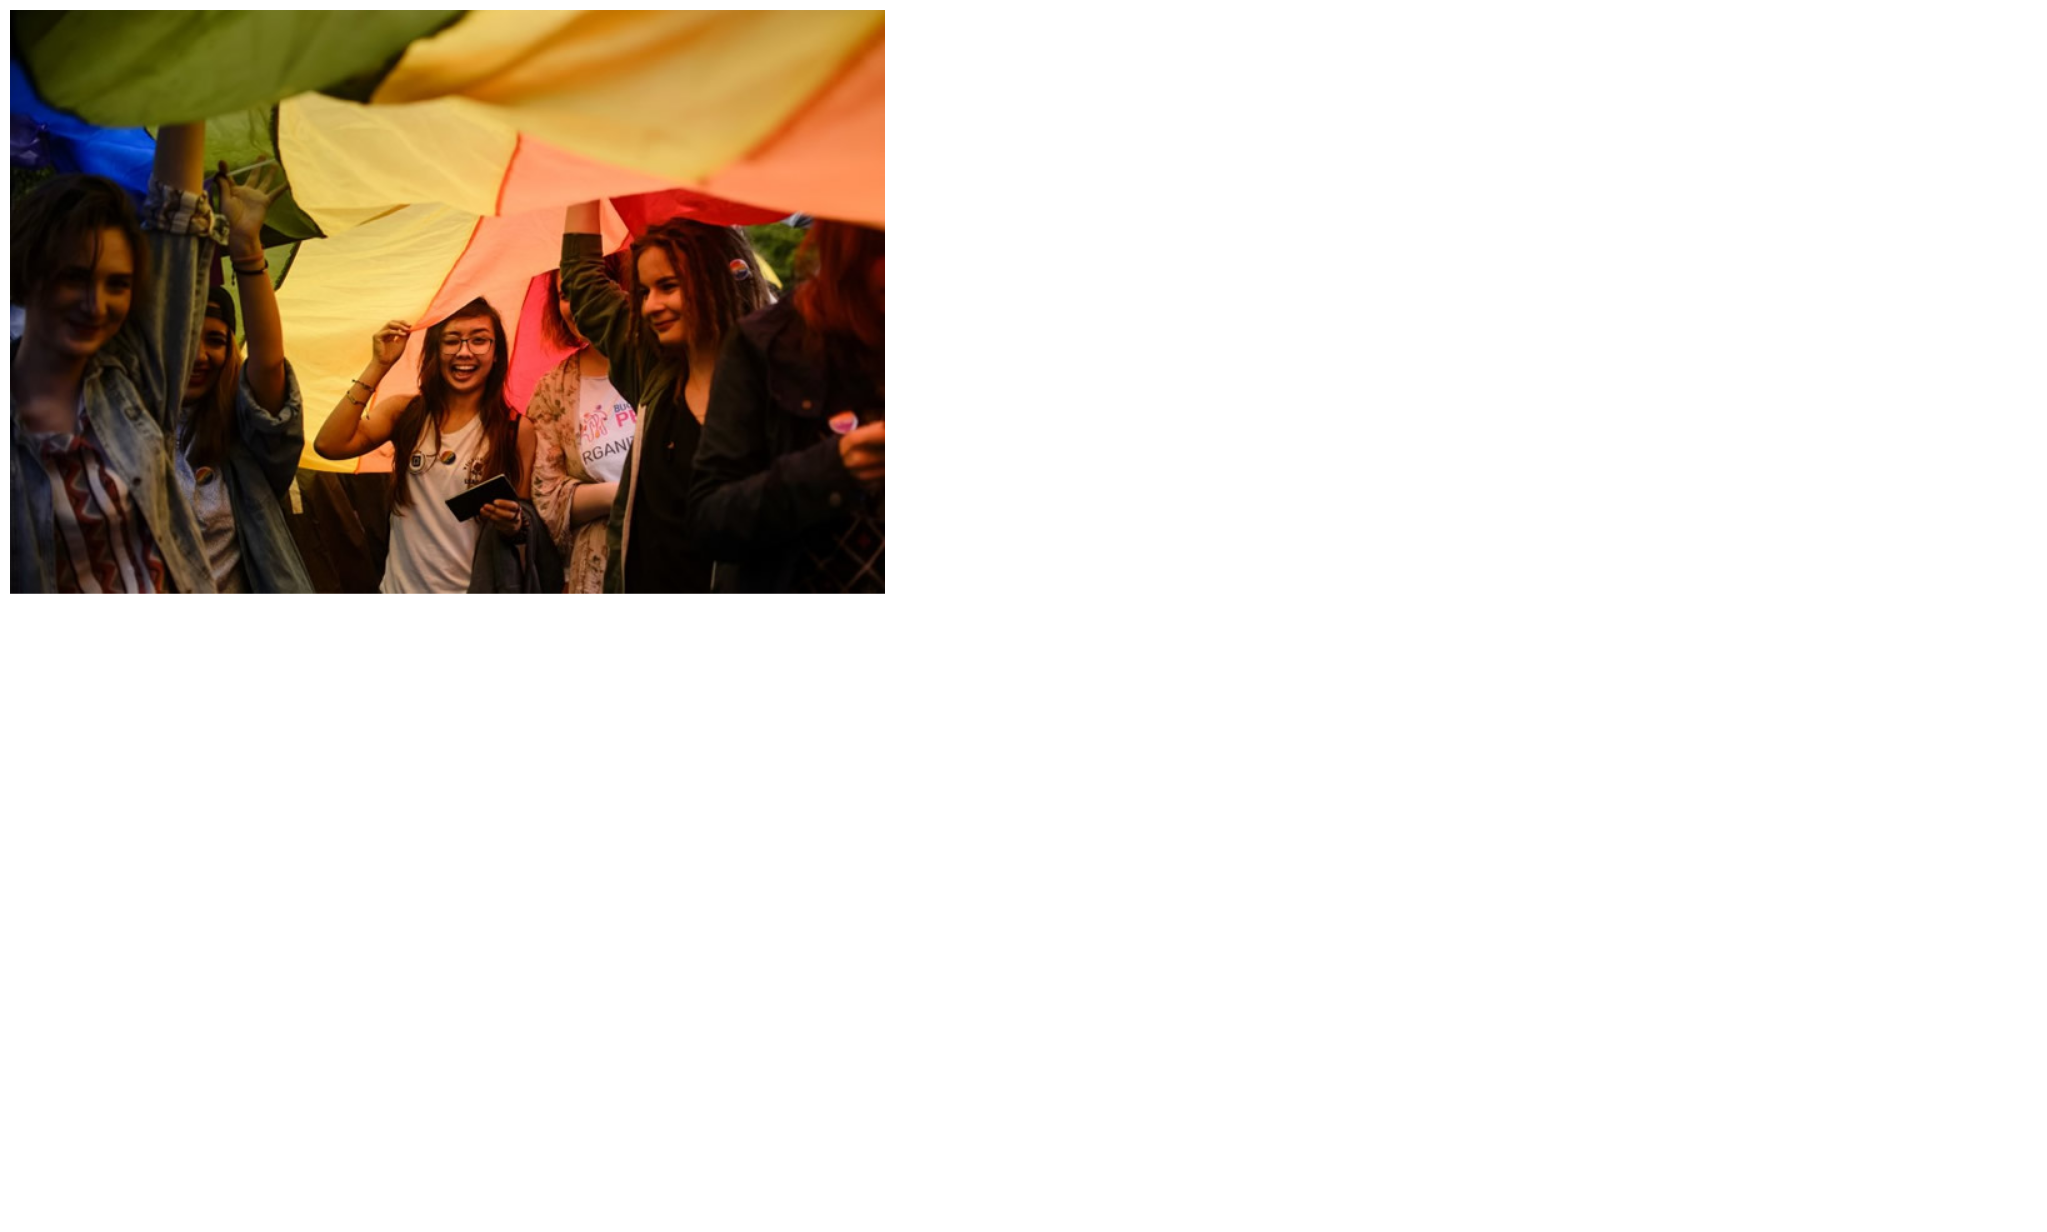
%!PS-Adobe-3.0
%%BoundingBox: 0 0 2047 1232
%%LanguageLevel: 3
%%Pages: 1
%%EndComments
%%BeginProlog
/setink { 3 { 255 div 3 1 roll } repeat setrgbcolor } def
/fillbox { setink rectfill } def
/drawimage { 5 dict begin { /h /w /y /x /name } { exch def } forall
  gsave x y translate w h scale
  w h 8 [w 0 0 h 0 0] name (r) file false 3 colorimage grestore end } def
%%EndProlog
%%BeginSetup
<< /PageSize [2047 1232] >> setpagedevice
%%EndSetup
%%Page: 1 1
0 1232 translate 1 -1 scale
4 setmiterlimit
0 0 2047 1232 255 255 255 fillbox
(assets/img1.rgb) 10 10 875 584 drawimage
showpage
%%EOF
